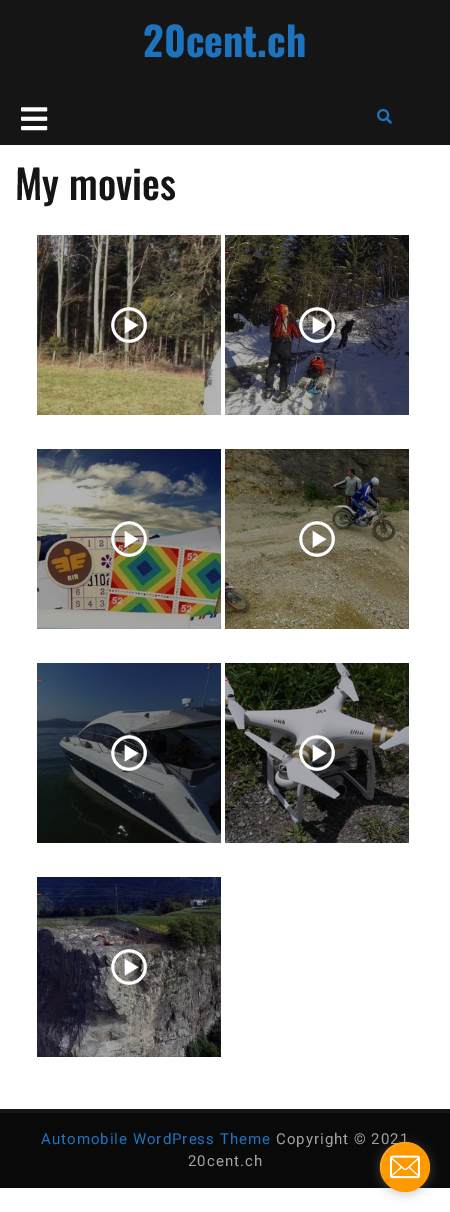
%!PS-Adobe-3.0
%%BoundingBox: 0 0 450 1212
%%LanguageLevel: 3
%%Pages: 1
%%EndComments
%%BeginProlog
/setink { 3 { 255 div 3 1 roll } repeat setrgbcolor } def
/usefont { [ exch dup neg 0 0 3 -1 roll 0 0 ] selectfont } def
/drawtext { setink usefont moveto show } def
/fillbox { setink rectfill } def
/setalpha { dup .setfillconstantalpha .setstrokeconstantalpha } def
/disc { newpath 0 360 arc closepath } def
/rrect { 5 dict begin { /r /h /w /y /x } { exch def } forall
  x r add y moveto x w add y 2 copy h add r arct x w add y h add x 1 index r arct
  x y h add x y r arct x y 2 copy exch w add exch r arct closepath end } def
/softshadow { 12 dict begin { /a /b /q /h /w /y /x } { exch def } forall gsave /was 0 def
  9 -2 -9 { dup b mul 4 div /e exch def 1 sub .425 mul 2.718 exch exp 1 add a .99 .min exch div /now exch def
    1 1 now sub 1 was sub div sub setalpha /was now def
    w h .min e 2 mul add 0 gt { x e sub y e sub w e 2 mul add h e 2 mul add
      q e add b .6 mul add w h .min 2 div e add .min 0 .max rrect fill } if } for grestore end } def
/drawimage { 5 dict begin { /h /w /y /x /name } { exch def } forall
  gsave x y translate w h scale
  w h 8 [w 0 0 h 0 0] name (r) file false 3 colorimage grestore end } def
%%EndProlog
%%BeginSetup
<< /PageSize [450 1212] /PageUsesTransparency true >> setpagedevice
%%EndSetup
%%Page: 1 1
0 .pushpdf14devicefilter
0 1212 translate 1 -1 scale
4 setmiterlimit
0 0 450 1212 255 255 255 fillbox
0 0 450 145 21 21 21 fillbox
(20cent.ch) 143 57 /Oswald-Bold 40 30 115 190 drawtext
(assets/img1.rgb) 21 107 27 24 drawimage
(assets/img2.rgb) 377 108 15 16 drawimage
(My movies) 15 200 /Oswald-Medium 40 21 21 21 drawtext
(assets/img3.rgb) 37 235 184 180 drawimage
(assets/img4.rgb) 111 307 36 36 drawimage
37 252 4 1 228 51 21 fillbox
(assets/img5.rgb) 225 235 184 180 drawimage
(assets/img6.rgb) 299 307 36 36 drawimage
225 252 4 1 228 51 21 fillbox
(assets/img7.rgb) 37 449 184 180 drawimage
(assets/img8.rgb) 111 521 36 36 drawimage
37 466 4 1 228 51 21 fillbox
(assets/img9.rgb) 225 449 184 180 drawimage
(assets/img10.rgb) 299 521 36 36 drawimage
225 466 4 1 228 51 21 fillbox
(assets/img11.rgb) 37 663 184 180 drawimage
(assets/img12.rgb) 111 735 36 36 drawimage
37 680 4 1 228 51 21 fillbox
(assets/img13.rgb) 225 663 184 180 drawimage
(assets/img14.rgb) 299 735 36 36 drawimage
225 680 4 1 228 51 21 fillbox
(assets/img15.rgb) 37 877 184 180 drawimage
(assets/img16.rgb) 111 949 36 36 drawimage
37 894 4 1 228 51 21 fillbox
0 1113 450 75 9 9 9 fillbox
128 128 128 setink
380 1144 50 50 25 5.5 0.4 softshadow
/Roboto-Regular 15 usefont
162 162 162 setink
276 1144 moveto 1 0 (Copyright © 2021) ashow
255 153 0 setink
405 1167 25 disc fill
0.15 setalpha
255 255 255 setink
406 1143 moveto 411 1143 415 1144 419 1146 curveto 395 1131 368 1161 385 1183 curveto 376 1168 383 1143 406 1143 curveto closepath fill
1 setalpha
(assets/img17.rgb) 390 1155 30 24 drawimage
0 1109 450 4 21 21 21 fillbox
30 115 190 setink
41 1144 moveto 1 0 (Automobile WordPress Theme) ashow
162 162 162 setink
188 1166 moveto 1 0 (20cent.ch) ashow
.poppdf14devicefilter showpage
%%EOF
